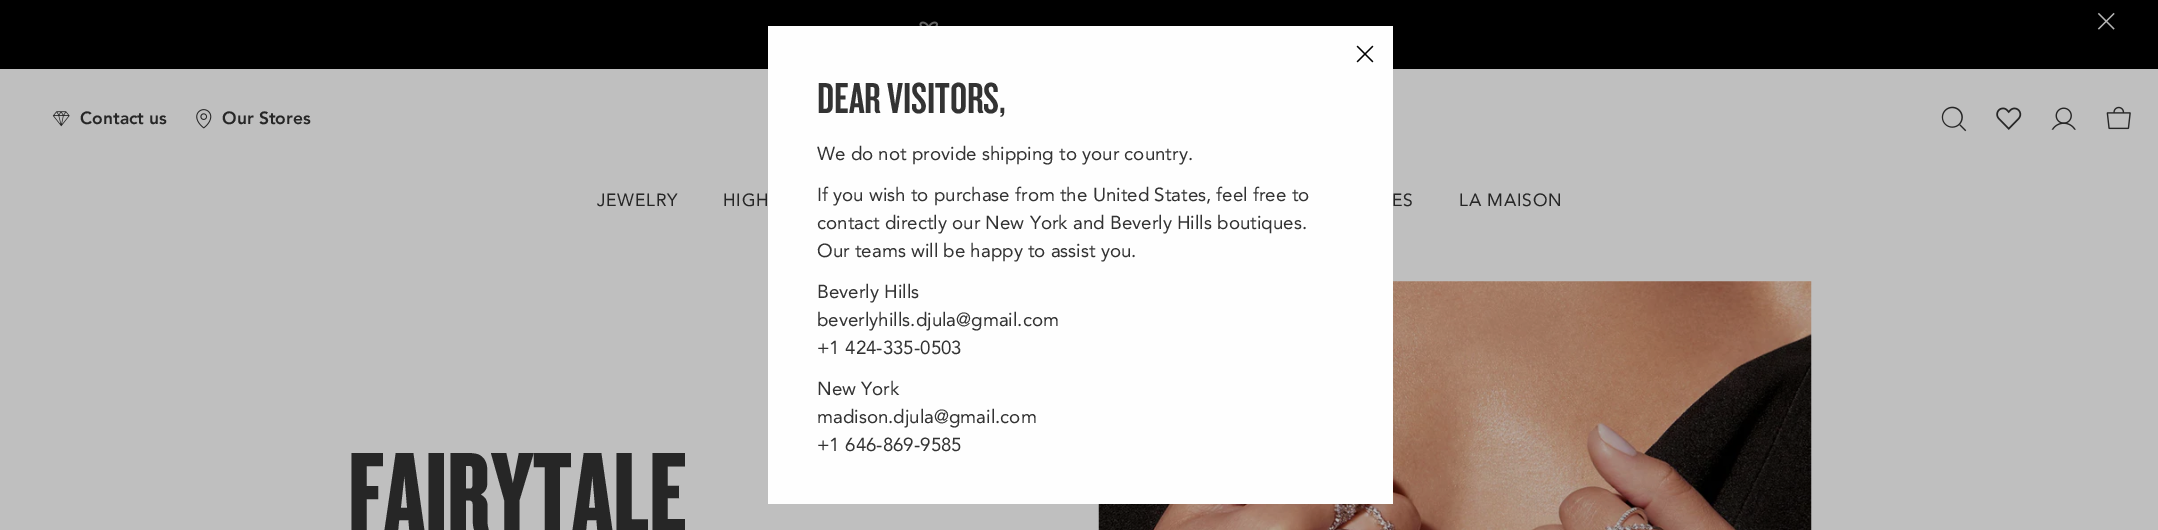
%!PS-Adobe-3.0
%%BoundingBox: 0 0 2158 530
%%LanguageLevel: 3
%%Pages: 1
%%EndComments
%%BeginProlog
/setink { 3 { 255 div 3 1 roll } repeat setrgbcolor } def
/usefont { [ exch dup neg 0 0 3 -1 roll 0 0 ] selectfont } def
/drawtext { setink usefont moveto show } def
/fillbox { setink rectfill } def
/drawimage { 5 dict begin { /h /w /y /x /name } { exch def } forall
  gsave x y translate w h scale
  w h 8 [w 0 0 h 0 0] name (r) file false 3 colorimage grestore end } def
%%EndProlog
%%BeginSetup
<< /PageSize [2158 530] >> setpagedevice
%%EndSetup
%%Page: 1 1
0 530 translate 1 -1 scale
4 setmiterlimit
0 0 2158 530 191 191 191 fillbox
0 0 2158 69 0 0 0 fillbox
(assets/img10.rgb) 1098 281 714 249 drawimage
768 26 625 478 254 254 254 fillbox
(assets/img1.rgb) 1356 45 18 18 drawimage
(DEAR VISITORS,) 817 113 /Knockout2-Regular 45 51 51 51 drawtext
(We do not provide shipping to your country.) 817 160 /Avenir-Regular 18.75 51 51 51 drawtext
(If you wish to purchase from the United States, feel free to) 817 201 /Avenir-Regular 18.75 51 51 51 drawtext
(contact directly our New York and Beverly Hills boutiques.) 817 229 /Avenir-Regular 18.75 51 51 51 drawtext
(Our teams will be happy to assist you.) 817 257 /Avenir-Regular 18.75 51 51 51 drawtext
(Beverly Hills) 817 298 /Avenir-Regular 18.75 51 51 51 drawtext
(beverlyhills.djula@gmail.com) 817 326 /Avenir-Regular 18.75 51 51 51 drawtext
(+1 424-335-0503) 817 354 /Avenir-Regular 18.75 51 51 51 drawtext
(New York) 817 395 /Avenir-Regular 18.75 51 51 51 drawtext
(madison.djula@gmail.com) 817 423 /Avenir-Regular 18.75 51 51 51 drawtext
(+1 646-869-9585) 817 451 /Avenir-Regular 18.75 51 51 51 drawtext
(assets/img2.rgb) 919 21 20 5 drawimage
(assets/img3.rgb) 2097 12 18 18 drawimage
(assets/img4.rgb) 52 111 18 16 drawimage
(Contact us) 80 124 /Avenir-Black 17.5 38 38 38 drawtext
(assets/img5.rgb) 196 109 16 20 drawimage
(Our Stores) 222 124 /Avenir-Black 17.5 38 38 38 drawtext
(assets/img6.rgb) 1941 106 26 26 drawimage
(assets/img7.rgb) 1996 107 26 23 drawimage
(assets/img8.rgb) 2051 107 25 23 drawimage
(assets/img9.rgb) 2106 106 25 24 drawimage
/Avenir-Regular 17.5 usefont
597 206 moveto 0.75 0 (JEWELRY) ashow
723 206 moveto 0.75 0 (HIGH) ashow
1392 206 moveto 0.75 0 (ES) ashow
1459 206 moveto 0.75 0 (LA MAISON) ashow
(FAIRYTALE) 348 533 /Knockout-Regular 120 38 38 38 drawtext
showpage
%%EOF
